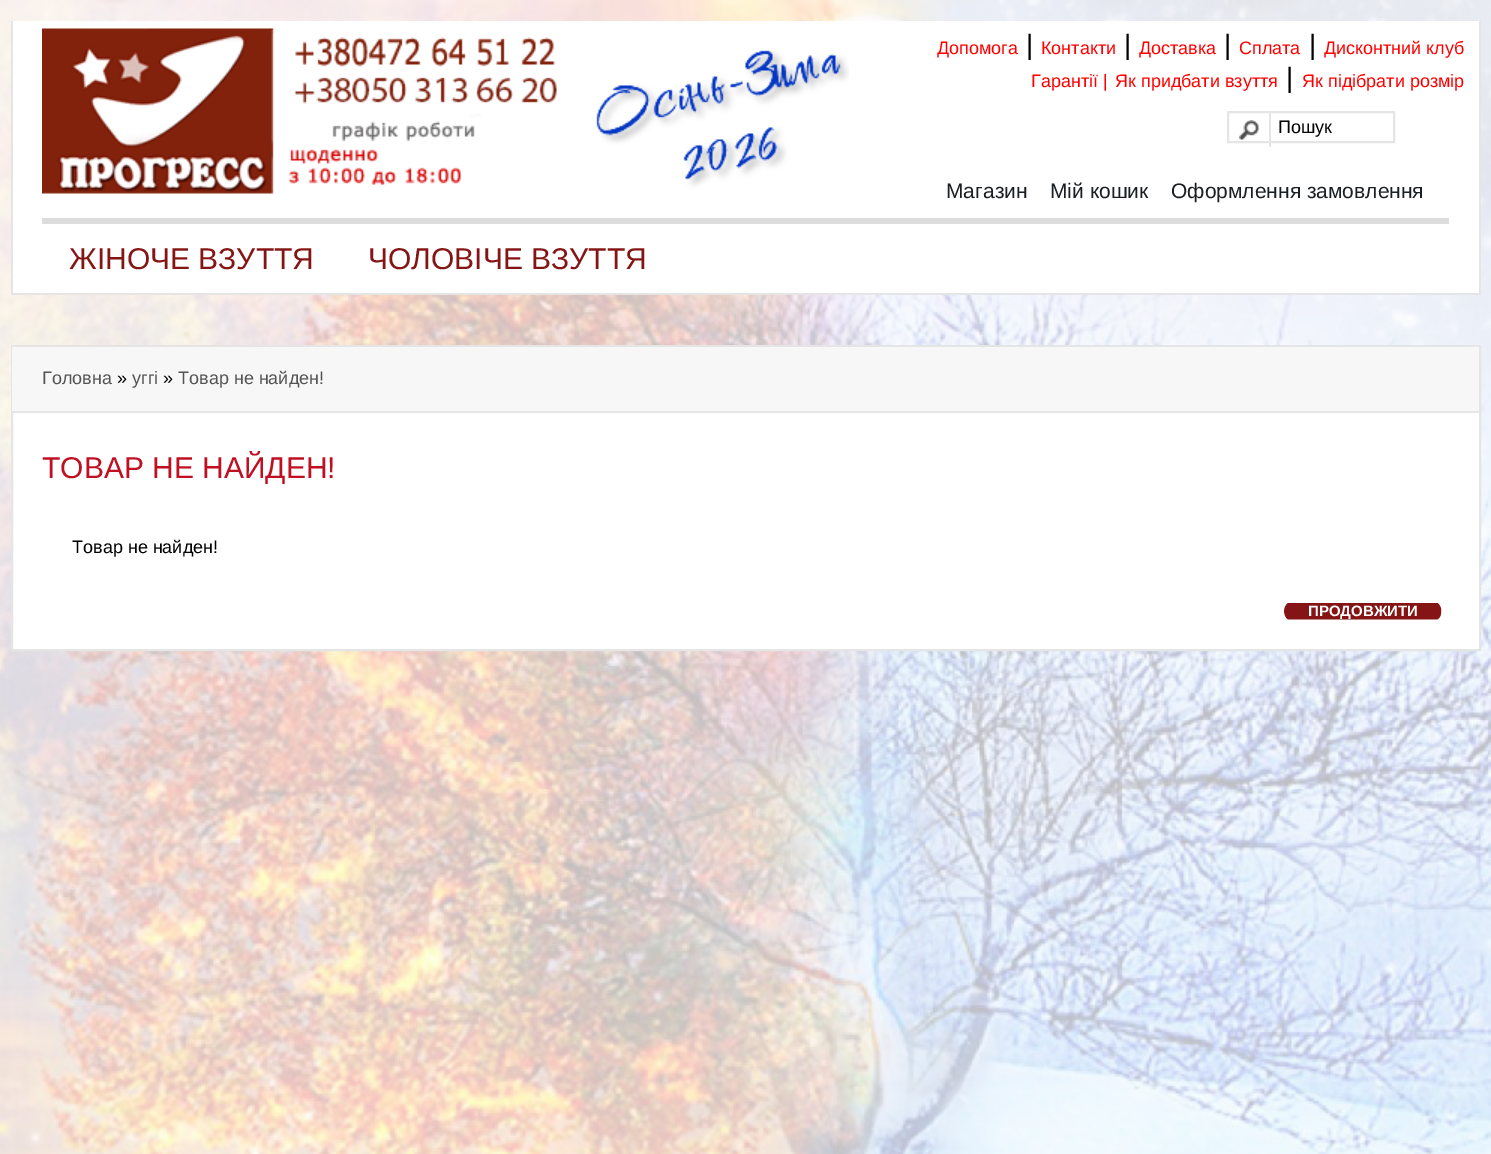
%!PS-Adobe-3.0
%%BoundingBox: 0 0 1491 1154
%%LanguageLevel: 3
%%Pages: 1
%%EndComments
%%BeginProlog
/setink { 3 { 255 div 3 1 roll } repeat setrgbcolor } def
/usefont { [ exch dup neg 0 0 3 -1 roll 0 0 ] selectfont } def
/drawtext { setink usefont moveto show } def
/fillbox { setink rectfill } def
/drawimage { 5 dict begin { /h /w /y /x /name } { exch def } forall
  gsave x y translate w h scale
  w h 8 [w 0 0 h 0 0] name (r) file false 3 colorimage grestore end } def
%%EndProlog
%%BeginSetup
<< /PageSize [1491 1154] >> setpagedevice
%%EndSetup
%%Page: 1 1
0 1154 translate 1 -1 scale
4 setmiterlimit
0 0 1491 1154 255 255 255 fillbox
(assets/img1.rgb) 0 0 1491 1154 drawimage
13 21 1466 272 255 255 255 fillbox
1479 21 2 273 229 229 229 fillbox
11 293 1470 2 229 229 229 fillbox
11 21 2 273 229 229 229 fillbox
(assets/img2.rgb) 42 28 807 166 drawimage
(Допомога) 937 54 /LiberationSans-Regular 18 255 0 0 drawtext
(|) 1026 54 /LiberationSans-Regular 28 0 0 0 drawtext
(Контакти) 1041 54 /LiberationSans-Regular 18 255 0 0 drawtext
(|) 1124 54 /LiberationSans-Regular 28 0 0 0 drawtext
(Доставка) 1139 54 /LiberationSans-Regular 18 255 0 0 drawtext
(|) 1224 54 /LiberationSans-Regular 28 0 0 0 drawtext
(Сплата) 1239 54 /LiberationSans-Regular 18 255 0 0 drawtext
(|) 1309 54 /LiberationSans-Regular 28 0 0 0 drawtext
(Дисконтний клуб) 1324 54 /LiberationSans-Regular 18 255 0 0 drawtext
(Гарантії |) 1031 87 /LiberationSans-Regular 18 255 0 0 drawtext
(Як придбати взуття) 1115 87 /LiberationSans-Regular 18 255 0 0 drawtext
(|) 1286 87 /LiberationSans-Regular 28 0 0 0 drawtext
(Як підібрати розмір) 1302 87 /LiberationSans-Regular 18 255 0 0 drawtext
229 229 229 setink
2 setlinewidth
1228 112 166 30 rectstroke
(assets/img3.rgb) 1239 120 20 20 drawimage
1269 111 2 36 229 229 229 fillbox
(Пошук) 1278 133 /LiberationSans-Regular 18 0 0 0 drawtext
(Магазин) 946 198 /LiberationSans-Regular 21 27 31 35 drawtext
(Мій кошик) 1050 198 /LiberationSans-Regular 21 27 31 35 drawtext
(Оформлення замовлення) 1171 198 /LiberationSans-Regular 21 27 31 35 drawtext
42 218 1407 6 220 220 220 fillbox
(ЖІНОЧЕ ВЗУТТЯ) 69 269 /LiberationSans-Regular 30 133 21 21 drawtext
(ЧОЛОВІЧЕ ВЗУТТЯ) 368 269 /LiberationSans-Regular 30 133 21 21 drawtext
13 413 1466 236 255 255 255 fillbox
229 229 229 setink
12 346 1468 304 rectstroke
12 347 1467 64 247 247 247 fillbox
12 411 1467 2 229 229 229 fillbox
(Головна) 42 384 /LiberationSans-Regular 18 85 85 85 drawtext
(») 117 384 /LiberationSans-Regular 18 0 0 0 drawtext
(уггі) 132 384 /LiberationSans-Regular 18 85 85 85 drawtext
(») 163 384 /LiberationSans-Regular 18 0 0 0 drawtext
(Товар не найден!) 178 384 /LiberationSans-Regular 18 85 85 85 drawtext
(ТОВАР НЕ НАЙДЕН!) 42 478 /LiberationSans-Regular 30 191 15 33 drawtext
(Товар не найден!) 72 553 /LiberationSans-Regular 18 0 0 0 drawtext
(assets/img4.rgb) 1284 603 158 17 drawimage
(ПРОДОВЖИТИ) 1308 616 /LiberationSans-Bold 15 255 255 255 drawtext
showpage
%%EOF
